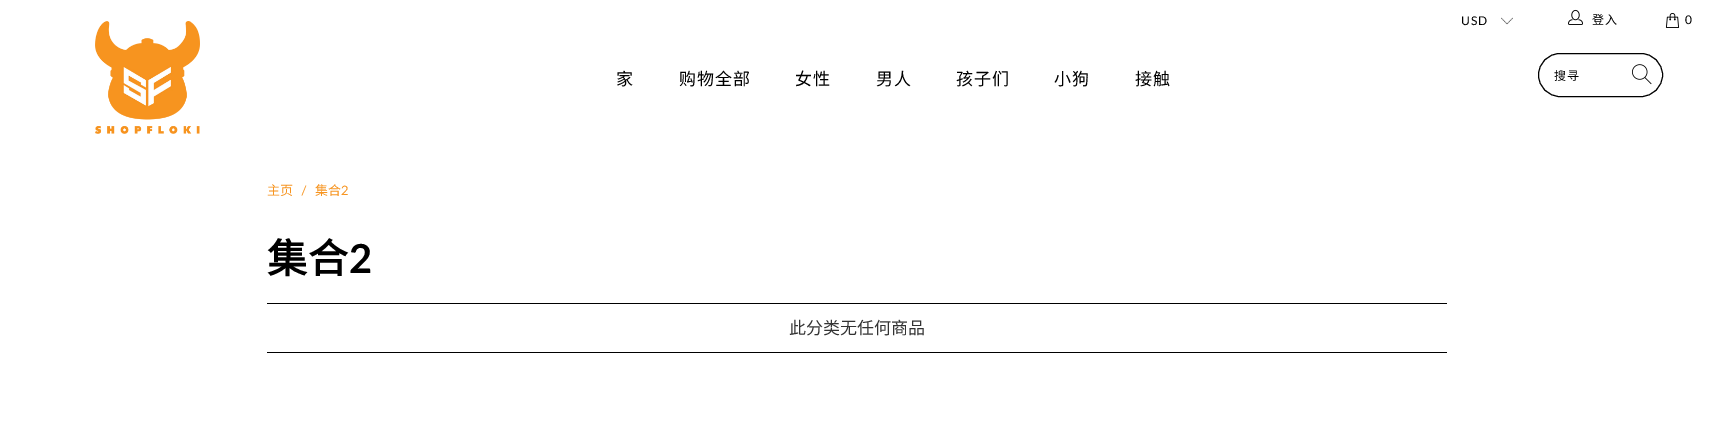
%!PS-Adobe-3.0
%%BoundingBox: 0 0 1713 447
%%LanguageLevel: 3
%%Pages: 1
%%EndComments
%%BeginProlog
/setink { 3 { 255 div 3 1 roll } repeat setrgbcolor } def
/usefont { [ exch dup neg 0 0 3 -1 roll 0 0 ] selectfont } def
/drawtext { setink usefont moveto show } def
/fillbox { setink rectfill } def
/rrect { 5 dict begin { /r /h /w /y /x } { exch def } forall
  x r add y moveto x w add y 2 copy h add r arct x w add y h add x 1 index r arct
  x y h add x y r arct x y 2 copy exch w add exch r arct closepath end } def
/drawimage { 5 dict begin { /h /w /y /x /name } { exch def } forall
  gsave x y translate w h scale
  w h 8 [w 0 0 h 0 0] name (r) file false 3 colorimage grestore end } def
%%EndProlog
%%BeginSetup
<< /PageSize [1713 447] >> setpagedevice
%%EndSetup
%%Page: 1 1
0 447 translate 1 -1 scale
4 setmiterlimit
0 0 1713 447 255 255 255 fillbox
(assets/img1.rgb) 1501 17 12 8 drawimage
/Lato-Regular 12 usefont
0 0 0 setink
1461 25 moveto 1 0 (USD) ashow
(assets/img2.rgb) 1568 9 15 16 drawimage
/NotoSansCJKSC-Regular 12 usefont
1592 24 moveto 1 0 (登入) ashow
(assets/img3.rgb) 1665 13 15 15 drawimage
/Lato-Regular 12 usefont
1685 24 moveto 1 0 (0) ashow
(assets/img4.rgb) 95 21 105 113 drawimage
/NotoSansCJKSC-Regular 17 usefont
616 85 moveto 1 0 (家) ashow
679 85 moveto 1 0 (购物全部) ashow
795 85 moveto 1 0 (女性) ashow
876 85 moveto 1 0 (男人) ashow
956 85 moveto 1 0 (孩子们) ashow
1054 85 moveto 1 0 (小狗) ashow
1135 85 moveto 1 0 (接触) ashow
1538.5 53.5 124 43 21.5 rrect stroke
/NotoSansCJKSC-Regular 12 usefont
1554 80 moveto 1 0 (搜寻) ashow
(assets/img5.rgb) 1632 64 20 21 drawimage
(主页) 267 195 /NotoSansCJKSC-Regular 13 247 148 31 drawtext
(/) 301 195 /Lato-Regular 13 247 148 31 drawtext
(集合) 315 195 /NotoSansCJKSC-Regular 13 247 148 31 drawtext
(2) 341 195 /Lato-Regular 13 247 148 31 drawtext
/NotoSansCJKSC-Bold 40 usefont
0 0 0 setink
267 273 moveto 1 0 (集合) ashow
/Lato-Bold 40 usefont
349 273 moveto 1 0 (2) ashow
267 303 1180 1 0 0 0 fillbox
267 352 1180 1 0 0 0 fillbox
(此分类无任何商品) 789 334 /NotoSansCJKSC-Regular 17 51 51 51 drawtext
showpage
%%EOF
